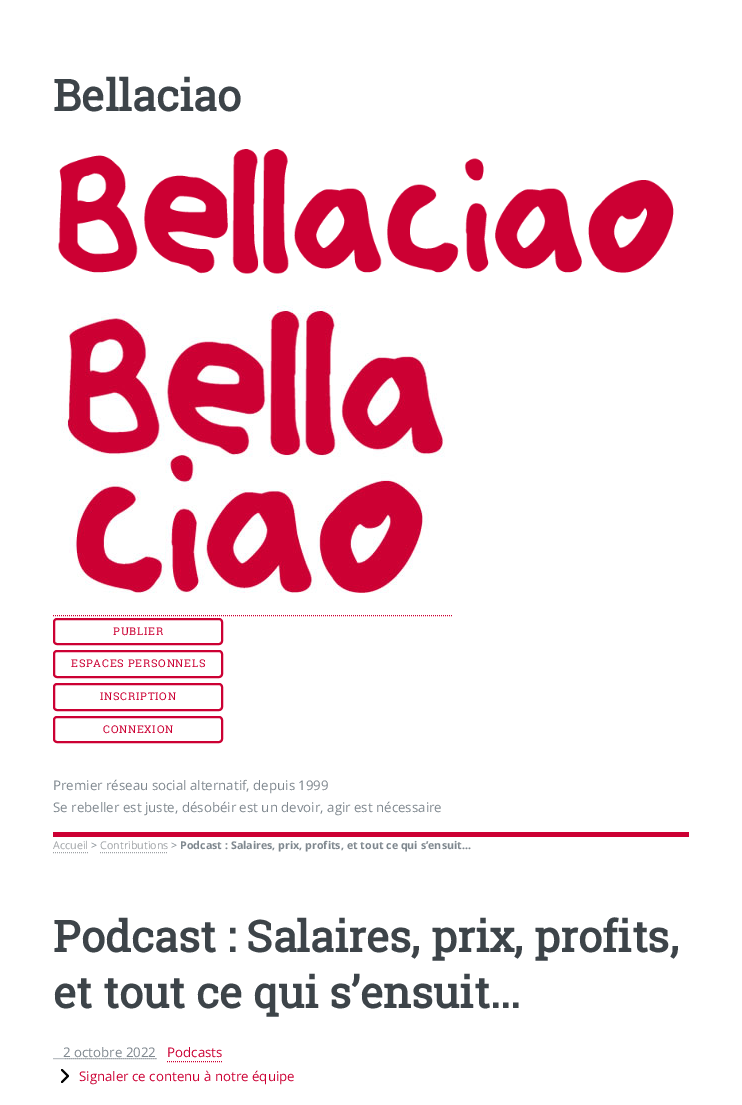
%!PS-Adobe-3.0
%%BoundingBox: 0 0 742 1105
%%LanguageLevel: 3
%%Pages: 1
%%EndComments
%%BeginProlog
/setink { 3 { 255 div 3 1 roll } repeat setrgbcolor } def
/usefont { [ exch dup neg 0 0 3 -1 roll 0 0 ] selectfont } def
/drawtext { setink usefont moveto show } def
/fillbox { setink rectfill } def
/rrect { 5 dict begin { /r /h /w /y /x } { exch def } forall
  x r add y moveto x w add y 2 copy h add r arct x w add y h add x 1 index r arct
  x y h add x y r arct x y 2 copy exch w add exch r arct closepath end } def
/drawimage { 5 dict begin { /h /w /y /x /name } { exch def } forall
  gsave x y translate w h scale
  w h 8 [w 0 0 h 0 0] name (r) file false 3 colorimage grestore end } def
%%EndProlog
%%BeginSetup
<< /PageSize [742 1105] >> setpagedevice
%%EndSetup
%%Page: 1 1
0 1105 translate 1 -1 scale
4 setmiterlimit
0 0 742 1105 255 255 255 fillbox
53 832 636 5 204 0 51 fillbox
(Bellaciao) 53 111 /RobotoSlab-Bold 43.3 61 68 73 drawtext
(assets/img1.rgb) 58 149 616 125 drawimage
(assets/img2.rgb) 61 305 384 288 drawimage
204 0 51 setink
[1 1] 0 setdash
53 615.5 moveto 453 615.5 lineto stroke
2 setlinewidth
[] 0 setdash
54 619 168 25 3 rrect stroke
/RobotoSlab-Regular 10.7 usefont
113 635 moveto 0.75 0 (PUBLIER) ashow
54 651 168 26 3 rrect stroke
71 667 moveto 0.75 0 (ESPACES PERSONNELS) ashow
54 684 168 26 3 rrect stroke
100 700 moveto 0.75 0 (INSCRIPTION) ashow
54 717 168 25 3 rrect stroke
103 733 moveto 0.75 0 (CONNEXION) ashow
(Premier réseau social alternatif, depuis 1999) 53 790 /OpenSans-Regular 13.3 127 136 143 drawtext
(Se rebeller est juste, désobéir est un devoir, agir est nécessaire) 53 812 /OpenSans-Regular 13.3 127 136 143 drawtext
(Accueil) 53 849 /OpenSans-Regular 10.7 159 163 166 drawtext
1 setlinewidth
[1 1] 0 setdash
53 852.5 moveto 88 852.5 lineto stroke
(>) 91 849 /OpenSans-Regular 10.7 127 136 143 drawtext
(Contributions) 100 849 /OpenSans-Regular 10.7 159 163 166 drawtext
100 852.5 moveto 168 852.5 lineto stroke
(>) 171 849 /OpenSans-Regular 10.7 127 136 143 drawtext
(Podcast : Salaires, prix, profits, et tout ce qui s’ensuit...) 180 849 /OpenSans-Bold 10.7 127 136 143 drawtext
(Podcast : Salaires, prix, profits,) 53 952 /RobotoSlab-Bold 43.3 61 68 73 drawtext
(et tout ce qui s’ensuit...) 53 1008 /RobotoSlab-Bold 43.3 61 68 73 drawtext
(2 octobre 2022) 63 1057 /OpenSans-Regular 13.3 127 136 143 drawtext
53.5 1058.5 moveto 63.5 1058.5 lineto stroke
63.5 1058.5 moveto 157 1058.5 lineto stroke
(Podcasts) 167 1057 /OpenSans-Regular 13.3 204 0 51 drawtext
167 1061.5 moveto 222 1061.5 lineto stroke
0 0 0 setink
2 setlinewidth
1 setlinecap
1 setlinejoin
[] 0 setdash
62 1082 moveto 68 1076 lineto 62 1070 lineto stroke
(Signaler ce contenu à notre équipe) 79 1081 /OpenSans-Regular 13.3 204 0 51 drawtext
showpage
%%EOF
